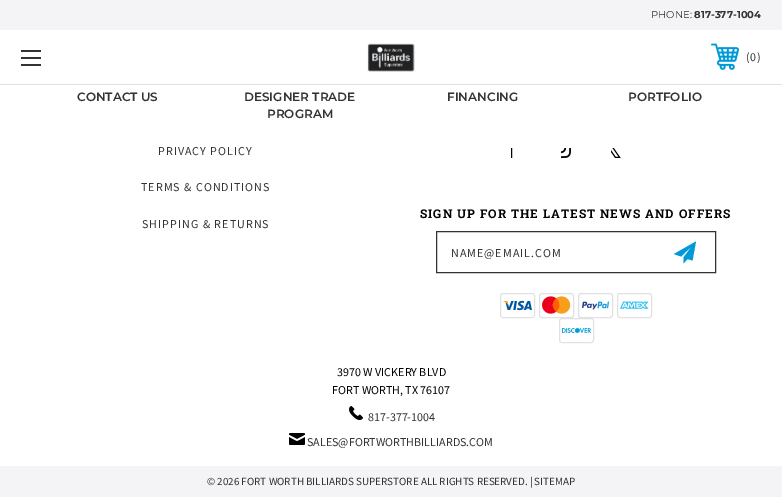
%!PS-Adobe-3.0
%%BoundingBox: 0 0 782 497
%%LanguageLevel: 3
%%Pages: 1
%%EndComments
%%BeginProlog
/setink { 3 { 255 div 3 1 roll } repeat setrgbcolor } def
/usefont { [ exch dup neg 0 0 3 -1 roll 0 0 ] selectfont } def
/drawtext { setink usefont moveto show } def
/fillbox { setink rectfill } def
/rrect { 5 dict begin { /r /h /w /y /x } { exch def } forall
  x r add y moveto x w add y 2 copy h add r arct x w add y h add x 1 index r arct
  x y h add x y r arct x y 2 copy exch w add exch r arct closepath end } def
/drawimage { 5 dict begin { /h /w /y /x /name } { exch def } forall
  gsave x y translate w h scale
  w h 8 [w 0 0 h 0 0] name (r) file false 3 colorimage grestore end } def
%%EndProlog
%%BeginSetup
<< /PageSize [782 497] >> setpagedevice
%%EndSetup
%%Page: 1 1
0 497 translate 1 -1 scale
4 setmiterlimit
0 0 782 497 255 255 255 fillbox
0 0 782 30 244 244 247 fillbox
(PHONE:) 651 18 /Montserrat-Regular 10 51 51 51 drawtext
(817-377-1004) 694 18 /Montserrat-Bold 10 51 51 51 drawtext
0 84 782 1 225 225 225 fillbox
21 57 20 2 51 51 51 fillbox
21 50 20 2 51 51 51 fillbox
21 64 20 2 51 51 51 fillbox
(assets/img1.rgb) 367 43 48 29 drawimage
(assets/img2.rgb) 711 43 28 27 drawimage
(\() 746 61 /SourceSansPro-Regular 12 51 51 51 drawtext
(0) 750 61 /SourceSansPro-Regular 12 51 51 51 drawtext
(\)) 757 61 /SourceSansPro-Regular 12 51 51 51 drawtext
(CONTACT US) 77 101 /Montserrat-SemiBold 12 51 51 51 drawtext
(DESIGNER TRADE) 244 101 /Montserrat-SemiBold 12 51 51 51 drawtext
(PROGRAM) 267 118 /Montserrat-SemiBold 12 51 51 51 drawtext
(FINANCING) 447 101 /Montserrat-SemiBold 12 51 51 51 drawtext
(PORTFOLIO) 628 101 /Montserrat-SemiBold 12 51 51 51 drawtext
/SourceSansPro-Regular 12 usefont
158 155 moveto 1 0 (PRIVACY POLICY) ashow
141 191 moveto 1 0 (TERMS & CONDITIONS) ashow
142 228 moveto 1 0 (SHIPPING & RETURNS) ashow
(assets/img3.rgb) 511 148 2 10 drawimage
(assets/img4.rgb) 561 148 10 10 drawimage
(assets/img5.rgb) 611 148 10 10 drawimage
/RobotoSlab-Bold 12 usefont
0 0 0 setink
420 218 moveto 1 0 (SIGN UP FOR THE LATEST NEWS AND OFFERS) ashow
51 51 51 setink
436.5 231.5 279 41 rectstroke
/SourceSansPro-Regular 12 usefont
451 257 moveto 1 0 (NAME@EMAIL.COM) ashow
0 155 215 setink
696 241.5 moveto 674 254 lineto 681 256.5 lineto 692 246 lineto 683.5 257.5 lineto 683.5 263.5 lineto 687.5 259 lineto 692.5 260.5 lineto closepath fill
225 225 225 setink
500.5 293.5 34 24 2.5 rrect stroke
(assets/img6.rgb) 503 300 29 11 drawimage
539.5 293.5 34 24 2.5 rrect stroke
(assets/img7.rgb) 542 296 29 18 drawimage
578.5 293.5 34 24 2.5 rrect stroke
(assets/img8.rgb) 582 301 27 9 drawimage
617.5 293.5 34 24 2.5 rrect stroke
(assets/img9.rgb) 620 301 29 8 drawimage
559.5 318.5 34 24 2.5 rrect stroke
(assets/img10.rgb) 562 328 29 5 drawimage
(3970 W VICKERY BLVD) 337 376 /SourceSansPro-Regular 12 0 0 0 drawtext
(FORT WORTH, TX 76107) 332 394 /SourceSansPro-Regular 12 0 0 0 drawtext
(assets/img11.rgb) 349 406 14 14 drawimage
(817-377-1004) 368 421 /SourceSansPro-Regular 12 51 51 51 drawtext
(assets/img12.rgb) 289 433 16 12 drawimage
(SALES@FORTWORTHBILLIARDS.COM) 307 446 /SourceSansPro-Regular 12 51 51 51 drawtext
0 466 782 31 244 244 247 fillbox
(© 2026 FORT WORTH BILLIARDS SUPERSTORE ALL RIGHTS RESERVED. | SITEMAP) 207 485 /SourceSansPro-Regular 11 51 51 51 drawtext
showpage
%%EOF
